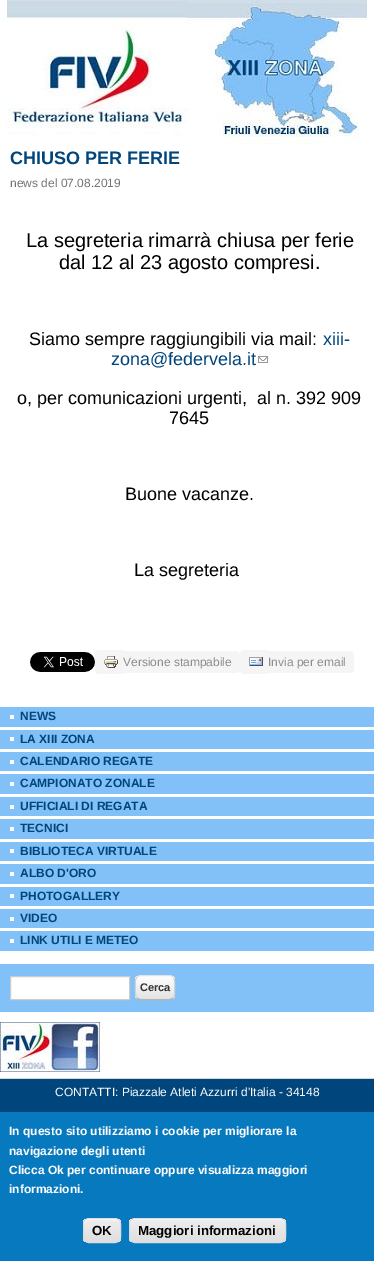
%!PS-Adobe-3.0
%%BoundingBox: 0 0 374 1261
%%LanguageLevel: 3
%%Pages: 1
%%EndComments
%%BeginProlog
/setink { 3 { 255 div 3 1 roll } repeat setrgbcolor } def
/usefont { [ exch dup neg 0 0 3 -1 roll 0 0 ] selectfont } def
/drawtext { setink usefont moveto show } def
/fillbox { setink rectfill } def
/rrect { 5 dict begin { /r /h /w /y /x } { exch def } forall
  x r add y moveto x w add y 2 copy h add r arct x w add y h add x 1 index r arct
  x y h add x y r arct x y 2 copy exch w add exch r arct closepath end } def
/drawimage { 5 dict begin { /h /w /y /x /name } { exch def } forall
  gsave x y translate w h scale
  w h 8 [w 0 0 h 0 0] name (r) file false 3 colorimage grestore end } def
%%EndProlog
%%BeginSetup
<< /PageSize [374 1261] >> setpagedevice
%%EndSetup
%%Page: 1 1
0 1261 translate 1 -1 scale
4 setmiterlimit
0 0 374 1261 255 255 255 fillbox
(assets/img1.rgb) 7 0 360 144 drawimage
(CHIUSO PER FERIE) 10 164 /LiberationSans-Bold 18 0 69 123 drawtext
(news del 07.08.2019) 10 187 /LiberationSans-Regular 12 116 116 116 drawtext
(La segreteria rimarrà chiusa per ferie) 26 247 /LiberationSans-Regular 20 0 0 0 drawtext
(dal 12 al 23 agosto compresi.) 59 269 /LiberationSans-Regular 20 0 0 0 drawtext
(Siamo sempre raggiungibili via mail:) 29 345 /LiberationSans-Regular 18 0 0 0 drawtext
(xiii-) 323 345 /LiberationSans-Regular 18 0 69 123 drawtext
(zona@federvela.it) 111 365 /LiberationSans-Regular 18 0 69 123 drawtext
(assets/img2.rgb) 258 356 10 7 drawimage
(o, per comunicazioni urgenti,  al n. 392 909) 17 404 /LiberationSans-Regular 18 0 0 0 drawtext
(7645) 169 424 /LiberationSans-Regular 18 0 0 0 drawtext
(Buone vacanze.) 125 500 /LiberationSans-Regular 18 0 0 0 drawtext
(La segreteria) 134 576 /LiberationSans-Regular 18 0 0 0 drawtext
(assets/img3.rgb) 30 652 65 20 drawimage
245 245 245 setink
99 650 moveto 123 650 lineto 123 674 lineto 99 674 lineto 97 674 95 672 95 670 curveto 95 654 lineto 95 652 97 650 99 650 curveto closepath fill
(assets/img4.rgb) 104 656 14 12 drawimage
123 651 moveto 236 651 lineto 238 651 240 653 240 655 curveto 240 669 lineto 240 671 238 673 236 673 curveto 123 673 lineto closepath fill
(Versione stampabile) 123 666 /LiberationSans-Regular 12 141 141 141 drawtext
245 245 245 setink
244 650 moveto 268 650 lineto 268 674 lineto 244 674 lineto 242 674 240 672 240 670 curveto 240 654 lineto 240 652 242 650 244 650 curveto closepath fill
(assets/img5.rgb) 249 657 14 9 drawimage
268 651 moveto 350 651 lineto 352 651 354 653 354 655 curveto 354 669 lineto 354 671 352 673 350 673 curveto 268 673 lineto closepath fill
(Invia per email) 268 666 /LiberationSans-Regular 12 141 141 141 drawtext
0 707 374 20 130 193 247 fillbox
10 715 4 4 255 255 255 fillbox
(NEWS) 20 720 /LiberationSans-Bold 12 0 69 123 drawtext
0 730 374 19 130 193 247 fillbox
10 737 4 4 255 255 255 fillbox
(LA XIII ZONA) 20 743 /LiberationSans-Bold 12 0 69 123 drawtext
0 752 374 19 130 193 247 fillbox
10 760 4 4 255 255 255 fillbox
(CALENDARIO REGATE) 20 765 /LiberationSans-Bold 12 0 69 123 drawtext
0 774 374 20 130 193 247 fillbox
10 782 4 4 255 255 255 fillbox
(CAMPIONATO ZONALE) 20 787 /LiberationSans-Bold 12 0 69 123 drawtext
0 797 374 19 130 193 247 fillbox
10 805 4 4 255 255 255 fillbox
(UFFICIALI DI REGATA) 20 810 /LiberationSans-Bold 12 0 69 123 drawtext
0 819 374 20 130 193 247 fillbox
10 827 4 4 255 255 255 fillbox
(TECNICI) 20 832 /LiberationSans-Bold 12 0 69 123 drawtext
0 842 374 19 130 193 247 fillbox
10 849 4 4 255 255 255 fillbox
(BIBLIOTECA VIRTUALE) 20 855 /LiberationSans-Bold 12 0 69 123 drawtext
0 864 374 20 130 193 247 fillbox
10 872 4 4 255 255 255 fillbox
(ALBO D'ORO) 20 877 /LiberationSans-Bold 12 0 69 123 drawtext
0 887 374 19 130 193 247 fillbox
10 894 4 4 255 255 255 fillbox
(PHOTOGALLERY) 20 900 /LiberationSans-Bold 12 0 69 123 drawtext
0 909 374 19 130 193 247 fillbox
10 917 4 4 255 255 255 fillbox
(VIDEO) 20 922 /LiberationSans-Bold 12 0 69 123 drawtext
0 931 374 20 130 193 247 fillbox
10 939 4 4 255 255 255 fillbox
(LINK UTILI E METEO) 20 944 /LiberationSans-Bold 12 0 69 123 drawtext
0 964 374 48 130 193 247 fillbox
255 255 255 setink
10.5 976.5 moveto 129.5 976.5 lineto 129.5 999.5 lineto 10.5 999.5 lineto closepath gsave fill grestore
204 204 204 setink
stroke
gsave
135 975 40 25 6 rrect clip newpath
gsave 135 976 moveto 175 976 lineto 175 999 lineto 135 999 lineto closepath clip newpath
<< /ShadingType 2 /ColorSpace /DeviceRGB /Coords [155 976 155 999] /Extend [true true] /Function << /FunctionType 2 /Domain [0 1] /C0 [1 1 1] /C1 [0.89 0.89 0.89] /N 1 >> >> shfill grestore
grestore
228 228 228 setink
137 977 moveto 138 976 139.5 975.5 141 975.5 curveto 169 975.5 lineto 170.5 975.5 172 976 173 977 curveto stroke
210 210 210 setink
173 977 moveto 175.5 979.5 174.5 984.5 174.5 987.5 curveto 174.5 990.5 175.5 995.5 173 998 curveto stroke
180 180 180 setink
173 998 moveto 172 999 170.5 999.5 169 999.5 curveto 141 999.5 lineto 139.5 999.5 138 999 137 998 curveto stroke
210 210 210 setink
137 998 moveto 134.5 995.5 135.5 990.5 135.5 987.5 curveto 135.5 984.5 134.5 979.5 137 977 curveto stroke
(Cerca) 140 991 /LiberationSans-Bold 11 51 51 51 drawtext
(assets/img6.rgb) 0 1022 110 50 drawimage
0 1078 374 1 207 215 219 fillbox
0 1079 374 33 0 69 123 fillbox
(CONTATTI: Piazzale Atleti Azzurri d'Italia - 34148) 55 1096 /LiberationSans-Regular 12 255 255 255 drawtext
0 1112 374 149 7 121 191 fillbox
(In questo sito utilizziamo i cookie per migliorare la) 9 1135 /LiberationSans-Bold 12 255 255 255 drawtext
(navigazione degli utenti) 9 1155 /LiberationSans-Bold 12 255 255 255 drawtext
(Clicca Ok per continuare oppure visualizza maggiori) 9 1174 /LiberationSans-Bold 12 255 255 255 drawtext
(informazioni.) 9 1193 /LiberationSans-Bold 12 255 255 255 drawtext
gsave
83 1218 38 25 6 rrect clip newpath
gsave 83 1219 moveto 121 1219 lineto 121 1242 lineto 83 1242 lineto closepath clip newpath
<< /ShadingType 2 /ColorSpace /DeviceRGB /Coords [84 1219 84 1242] /Extend [true true] /Function << /FunctionType 3 /Domain [0 1] /Functions [<< /FunctionType 2 /Domain [0 1] /C0 [0.929 0.929 0.929] /C1 [0.929 0.929 0.929] /N 1 >> << /FunctionType 2 /Domain [0 1] /C0 [0.929 0.929 0.929] /C1 [0.875 0.875 0.875] /N 1 >>] /Bounds [0.05] /Encode [0 1 0 1] >> >> shfill grestore
grestore
89 1220 moveto 111 1220 lineto 118.5 1220 120 1221 120 1226 curveto 120 1219 117 1219 110.5 1219 curveto 93.5 1219 lineto 86.5 1219 84 1219 84 1226.5 curveto 84 1223 85.5 1220 89 1220 curveto closepath fill
220 220 220 setink
83.5 1218.5 37 24 5.5 rrect stroke
(OK) 92 1235 /LiberationSans-Bold 13.25 0 0 0 drawtext
gsave
129 1218 157 25 6 rrect clip newpath
gsave 129 1219 moveto 286 1219 lineto 286 1242 lineto 129 1242 lineto closepath clip newpath
<< /ShadingType 2 /ColorSpace /DeviceRGB /Coords [130 1219 130 1242] /Extend [true true] /Function << /FunctionType 3 /Domain [0 1] /Functions [<< /FunctionType 2 /Domain [0 1] /C0 [0.929 0.929 0.929] /C1 [0.929 0.929 0.929] /N 1 >> << /FunctionType 2 /Domain [0 1] /C0 [0.929 0.929 0.929] /C1 [0.875 0.875 0.875] /N 1 >>] /Bounds [0.05] /Encode [0 1 0 1] >> >> shfill grestore
grestore
255 255 255 setink
135 1220 moveto 280 1220 lineto 283 1220 285 1222 285 1225 curveto 285 1224 lineto 285 1221 283 1219 280 1219 curveto 135 1219 lineto 132 1219 130 1221 130 1224 curveto 130 1225 lineto 130 1222 132 1220 135 1220 curveto closepath fill
220 220 220 setink
129.5 1218.5 156 24 5.5 rrect stroke
(Maggiori informazioni) 138 1235 /LiberationSans-Bold 13.25 0 0 0 drawtext
showpage
%%EOF
